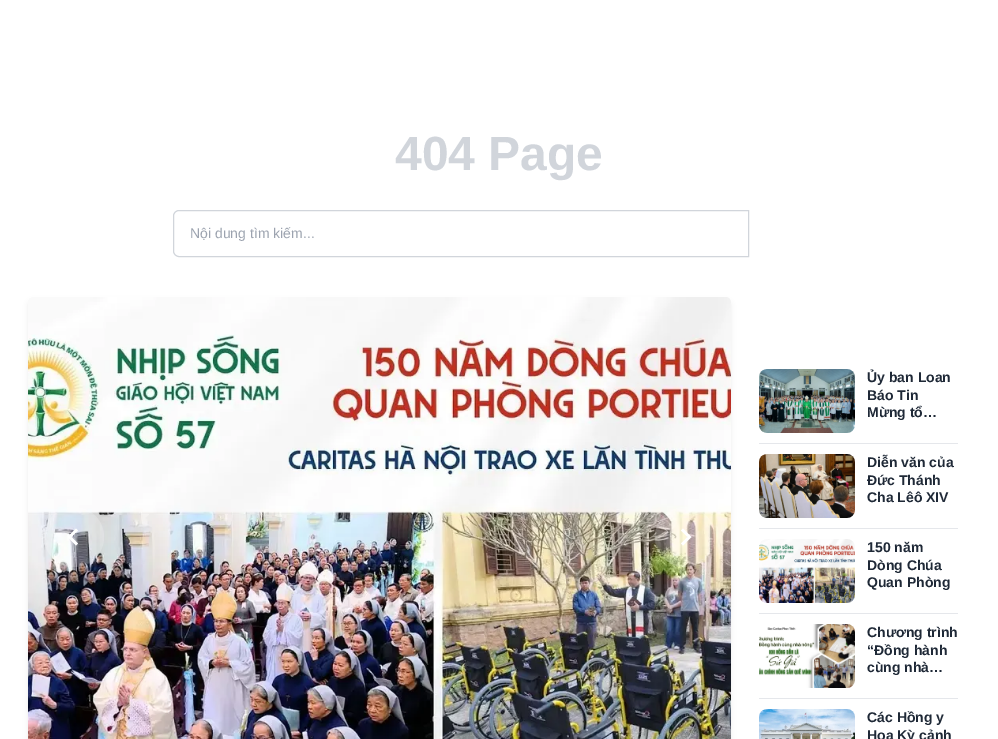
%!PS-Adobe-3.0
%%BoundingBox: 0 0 998 739
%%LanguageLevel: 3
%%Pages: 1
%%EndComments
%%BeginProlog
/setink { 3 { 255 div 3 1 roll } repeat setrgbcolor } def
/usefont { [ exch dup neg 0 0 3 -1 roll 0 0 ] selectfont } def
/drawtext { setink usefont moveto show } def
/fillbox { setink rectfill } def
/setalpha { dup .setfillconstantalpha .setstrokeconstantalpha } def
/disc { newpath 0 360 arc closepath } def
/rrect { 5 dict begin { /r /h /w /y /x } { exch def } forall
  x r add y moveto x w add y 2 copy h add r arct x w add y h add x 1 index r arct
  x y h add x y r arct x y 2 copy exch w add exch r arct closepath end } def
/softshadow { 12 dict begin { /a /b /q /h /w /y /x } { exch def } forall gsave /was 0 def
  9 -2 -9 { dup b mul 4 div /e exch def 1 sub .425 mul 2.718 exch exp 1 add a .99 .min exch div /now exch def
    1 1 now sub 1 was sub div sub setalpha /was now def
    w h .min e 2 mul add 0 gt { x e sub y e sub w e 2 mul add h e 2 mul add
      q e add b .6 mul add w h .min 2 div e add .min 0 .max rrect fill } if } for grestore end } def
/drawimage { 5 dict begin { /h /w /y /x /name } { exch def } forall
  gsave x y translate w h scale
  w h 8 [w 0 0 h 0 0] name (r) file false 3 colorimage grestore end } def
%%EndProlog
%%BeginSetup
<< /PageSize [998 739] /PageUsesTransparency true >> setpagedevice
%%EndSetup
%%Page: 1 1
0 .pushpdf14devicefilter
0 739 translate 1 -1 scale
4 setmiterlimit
0 0 998 739 255 255 255 fillbox
(404 Page) 395 170 /LiberationSans-Bold 48 209 213 219 drawtext
179 210.5 moveto 748.5 210.5 lineto 748.5 256.5 lineto 179 256.5 lineto 176 256.5 173.5 254 173.5 251 curveto 173.5 216 lineto 173.5 213 176 210.5 179 210.5 curveto closepath stroke
(Nội dung tìm kiếm...) 190 238 /LiberationSans-Regular 14 156 163 175 drawtext
0 0 0 setink
29 302 701 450 4 3 0.1 softshadow
(assets/img1.rgb) 28 297 703 442 drawimage
0.2 setalpha
255 255 255 setink
74 537 30 disc fill
1 setalpha
76 528.5 moveto 67.5 537 lineto 76 545.5 lineto 78 543.5 lineto 71.5 537 lineto 78 530.5 lineto closepath fill
0.2 setalpha
685 537 30 disc fill
1 setalpha
683 545.5 moveto 691.5 537 lineto 683 528.5 lineto 681 530.5 lineto 687.5 537 lineto 681 543.5 lineto closepath fill
759 443 199 1 229 231 235 fillbox
(assets/img2.rgb) 759 369 96 64 drawimage
(Ủy ban Loan) 867 382 /LiberationSans-Bold 14 31 41 55 drawtext
(Báo Tin) 867 400 /LiberationSans-Bold 14 31 41 55 drawtext
(Mừng tổ…) 867 417 /LiberationSans-Bold 14 31 41 55 drawtext
759 528 199 1 229 231 235 fillbox
(assets/img3.rgb) 759 454 96 64 drawimage
(Diễn văn của) 867 467 /LiberationSans-Bold 14 31 41 55 drawtext
(Đức Thánh) 867 485 /LiberationSans-Bold 14 31 41 55 drawtext
(Cha Lêô XIV) 867 502 /LiberationSans-Bold 14 31 41 55 drawtext
759 613 199 1 229 231 235 fillbox
(assets/img4.rgb) 759 539 96 64 drawimage
(150 năm) 867 552 /LiberationSans-Bold 14 31 41 55 drawtext
(Dòng Chúa) 867 570 /LiberationSans-Bold 14 31 41 55 drawtext
(Quan Phòng) 867 587 /LiberationSans-Bold 14 31 41 55 drawtext
759 698 199 1 229 231 235 fillbox
(assets/img5.rgb) 759 624 96 64 drawimage
(Chương trình) 867 637 /LiberationSans-Bold 14 31 41 55 drawtext
(“Đồng hành) 867 655 /LiberationSans-Bold 14 31 41 55 drawtext
(cùng nhà…) 867 672 /LiberationSans-Bold 14 31 41 55 drawtext
(assets/img6.rgb) 759 709 96 30 drawimage
(Các Hồng y) 867 722 /LiberationSans-Bold 14 31 41 55 drawtext
(Hoa Kỳ cảnh) 867 740 /LiberationSans-Bold 14 31 41 55 drawtext
.poppdf14devicefilter showpage
%%EOF
